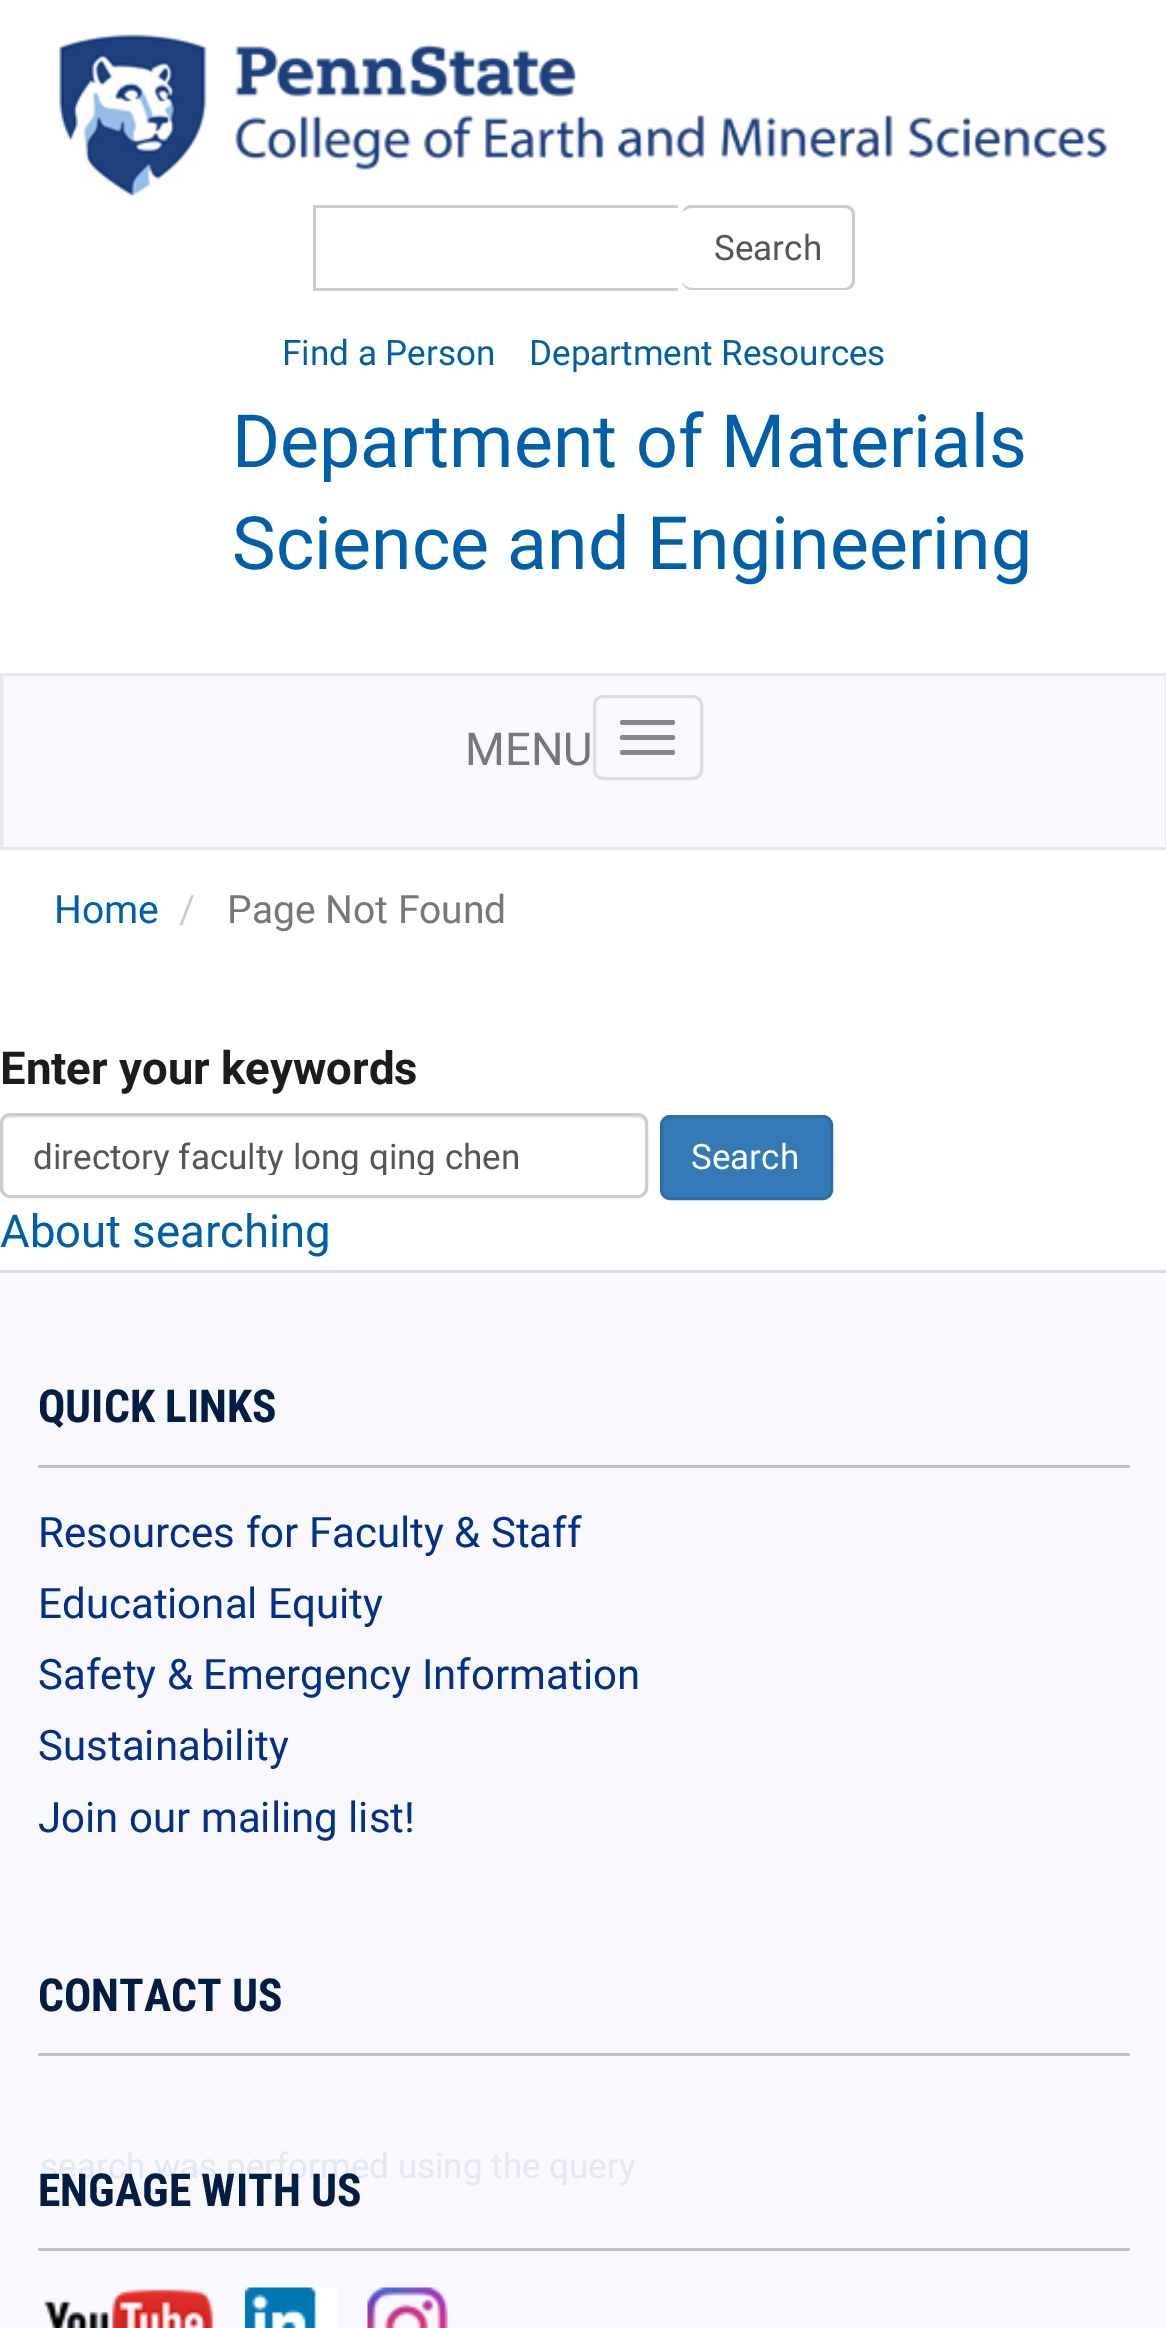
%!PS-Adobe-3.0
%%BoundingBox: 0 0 1166 2328
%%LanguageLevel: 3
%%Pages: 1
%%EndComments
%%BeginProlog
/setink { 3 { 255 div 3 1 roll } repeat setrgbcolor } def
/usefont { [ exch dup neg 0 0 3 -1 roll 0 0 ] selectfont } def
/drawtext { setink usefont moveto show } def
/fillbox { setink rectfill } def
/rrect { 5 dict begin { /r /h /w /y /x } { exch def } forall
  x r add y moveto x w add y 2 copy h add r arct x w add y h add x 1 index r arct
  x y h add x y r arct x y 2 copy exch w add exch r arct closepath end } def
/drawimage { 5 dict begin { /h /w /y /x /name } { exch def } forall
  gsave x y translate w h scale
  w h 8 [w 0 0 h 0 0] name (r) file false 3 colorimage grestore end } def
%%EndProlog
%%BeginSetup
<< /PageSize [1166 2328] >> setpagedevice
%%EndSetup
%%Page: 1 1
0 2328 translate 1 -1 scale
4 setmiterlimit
0 0 1166 2328 255 255 255 fillbox
(assets/img1.rgb) 59 34 148 163 drawimage
(assets/img2.rgb) 235 44 342 53 drawimage
(assets/img3.rgb) 235 115 872 55 drawimage
204 204 204 setink
692 205 moveto 845 205 lineto 851 205 855 209 855 215 curveto 855 280 lineto 855 286 851 290 845 290 curveto 692 290 lineto 687 290 682 286 682 280 curveto 682 215 lineto 682 209 687 205 692 205 curveto closepath 692 208 moveto 845 208 lineto 849 208 852 211 852 215 curveto 852 280 lineto 852 284 849 288 845 288 curveto 692 288 lineto 687 288 682 284 682 280 curveto 682 215 lineto 682 211 687 208 692 208 curveto closepath eofill
255 255 255 setink
313 205 moveto 673 205 lineto 678.5 205 683 209.5 683 215 curveto 683 280 lineto 683 285.5 678.5 290 673 290 curveto 313 290 lineto closepath fill
313 205 365 3 204 204 204 fillbox
313 288 365 3 204 204 204 fillbox
313 205 3 85 204 204 204 fillbox
(Search) 714 260 /Roboto-Regular 35 85 85 85 drawtext
(Find a Person) 282 365 /Roboto-Regular 35 0 95 169 drawtext
(Department Resources) 529 365 /Roboto-Regular 35 0 95 169 drawtext
(Department of Materials) 232 467 /Roboto-Regular 73.5 0 95 169 drawtext
(Science and Engineering) 232 569 /Roboto-Regular 73.5 0 95 169 drawtext
248 248 254 setink
1.5 674.5 moveto 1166.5 674.5 lineto 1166.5 848.5 lineto 1.5 848.5 lineto closepath gsave fill grestore
231 231 231 setink
3 setlinewidth
stroke
(MENU) 465 765 /Roboto-Regular 45.5 119 119 119 drawtext
221 221 221 setink
594.5 696.5 107 82 8.5 rrect stroke
136 136 136 setink
620 720 55 5 2.5 rrect fill
620 735 55 5 2.5 rrect fill
620 750 55 5 2.5 rrect fill
(Home) 54 923 /Roboto-Regular 39 0 95 169 drawtext
(/) 179 923 /Roboto-Regular 39 204 204 204 drawtext
(Page Not Found) 227 923 /Roboto-Regular 39 119 119 119 drawtext
(Enter your keywords) 0 1084 /Roboto-Bold 45.5 29 27 27 drawtext
236 236 236 setink
10 1118 moveto 638 1118 lineto 642 1118 645 1121 645 1125 curveto 645 1123 lineto 645 1119 641 1115 637 1115 curveto 11 1115 lineto 7 1115 4 1118 3 1121 curveto 5 1119 7 1118 10 1118 curveto closepath fill
204 204 204 setink
1.5 1114.5 645 82 8.5 rrect stroke
gsave
33 1135 572 40 rectclip
(directory faculty long qing chen) 33 1169 /Roboto-Regular 35 85 85 85 drawtext
grestore
51 122 183 setink
661.5 1116.5 170 82 8.5 rrect gsave fill grestore
46 109 164 setink
stroke
(Search) 691 1169 /Roboto-Regular 35 255 255 255 drawtext
(About searching) 0 1247 /Roboto-Regular 45.5 0 95 169 drawtext
0 1273 1166 1055 248 248 254 fillbox
(search was performed using the query) 40 2178 /Roboto-Regular 35 228 231 239 drawtext
0 1270 1166 3 221 221 221 fillbox
38 1465 1092 3 186 193 200 fillbox
(QUICK LINKS) 38 1422 /RobotoCondensed-Bold 45.5 0 30 68 drawtext
(Resources for Faculty & Staff) 38 1547 /Roboto-Regular 42 0 48 135 drawtext
(Educational Equity) 38 1618 /Roboto-Regular 42 0 48 135 drawtext
(Safety & Emergency Information) 38 1689 /Roboto-Regular 42 0 48 135 drawtext
(Sustainability) 38 1760 /Roboto-Regular 42 0 48 135 drawtext
(Join our mailing list!) 38 1832 /Roboto-Regular 42 0 48 135 drawtext
38 2053 1092 3 186 193 200 fillbox
(CONTACT US) 38 2011 /RobotoCondensed-Bold 45.5 0 30 68 drawtext
38 2248 1092 3 186 193 200 fillbox
(ENGAGE WITH US) 38 2206 /RobotoCondensed-Bold 45.5 0 30 68 drawtext
(assets/img4.rgb) 44 2289 170 39 drawimage
(assets/img5.rgb) 245 2287 92 41 drawimage
(assets/img6.rgb) 367 2287 81 41 drawimage
showpage
%%EOF
